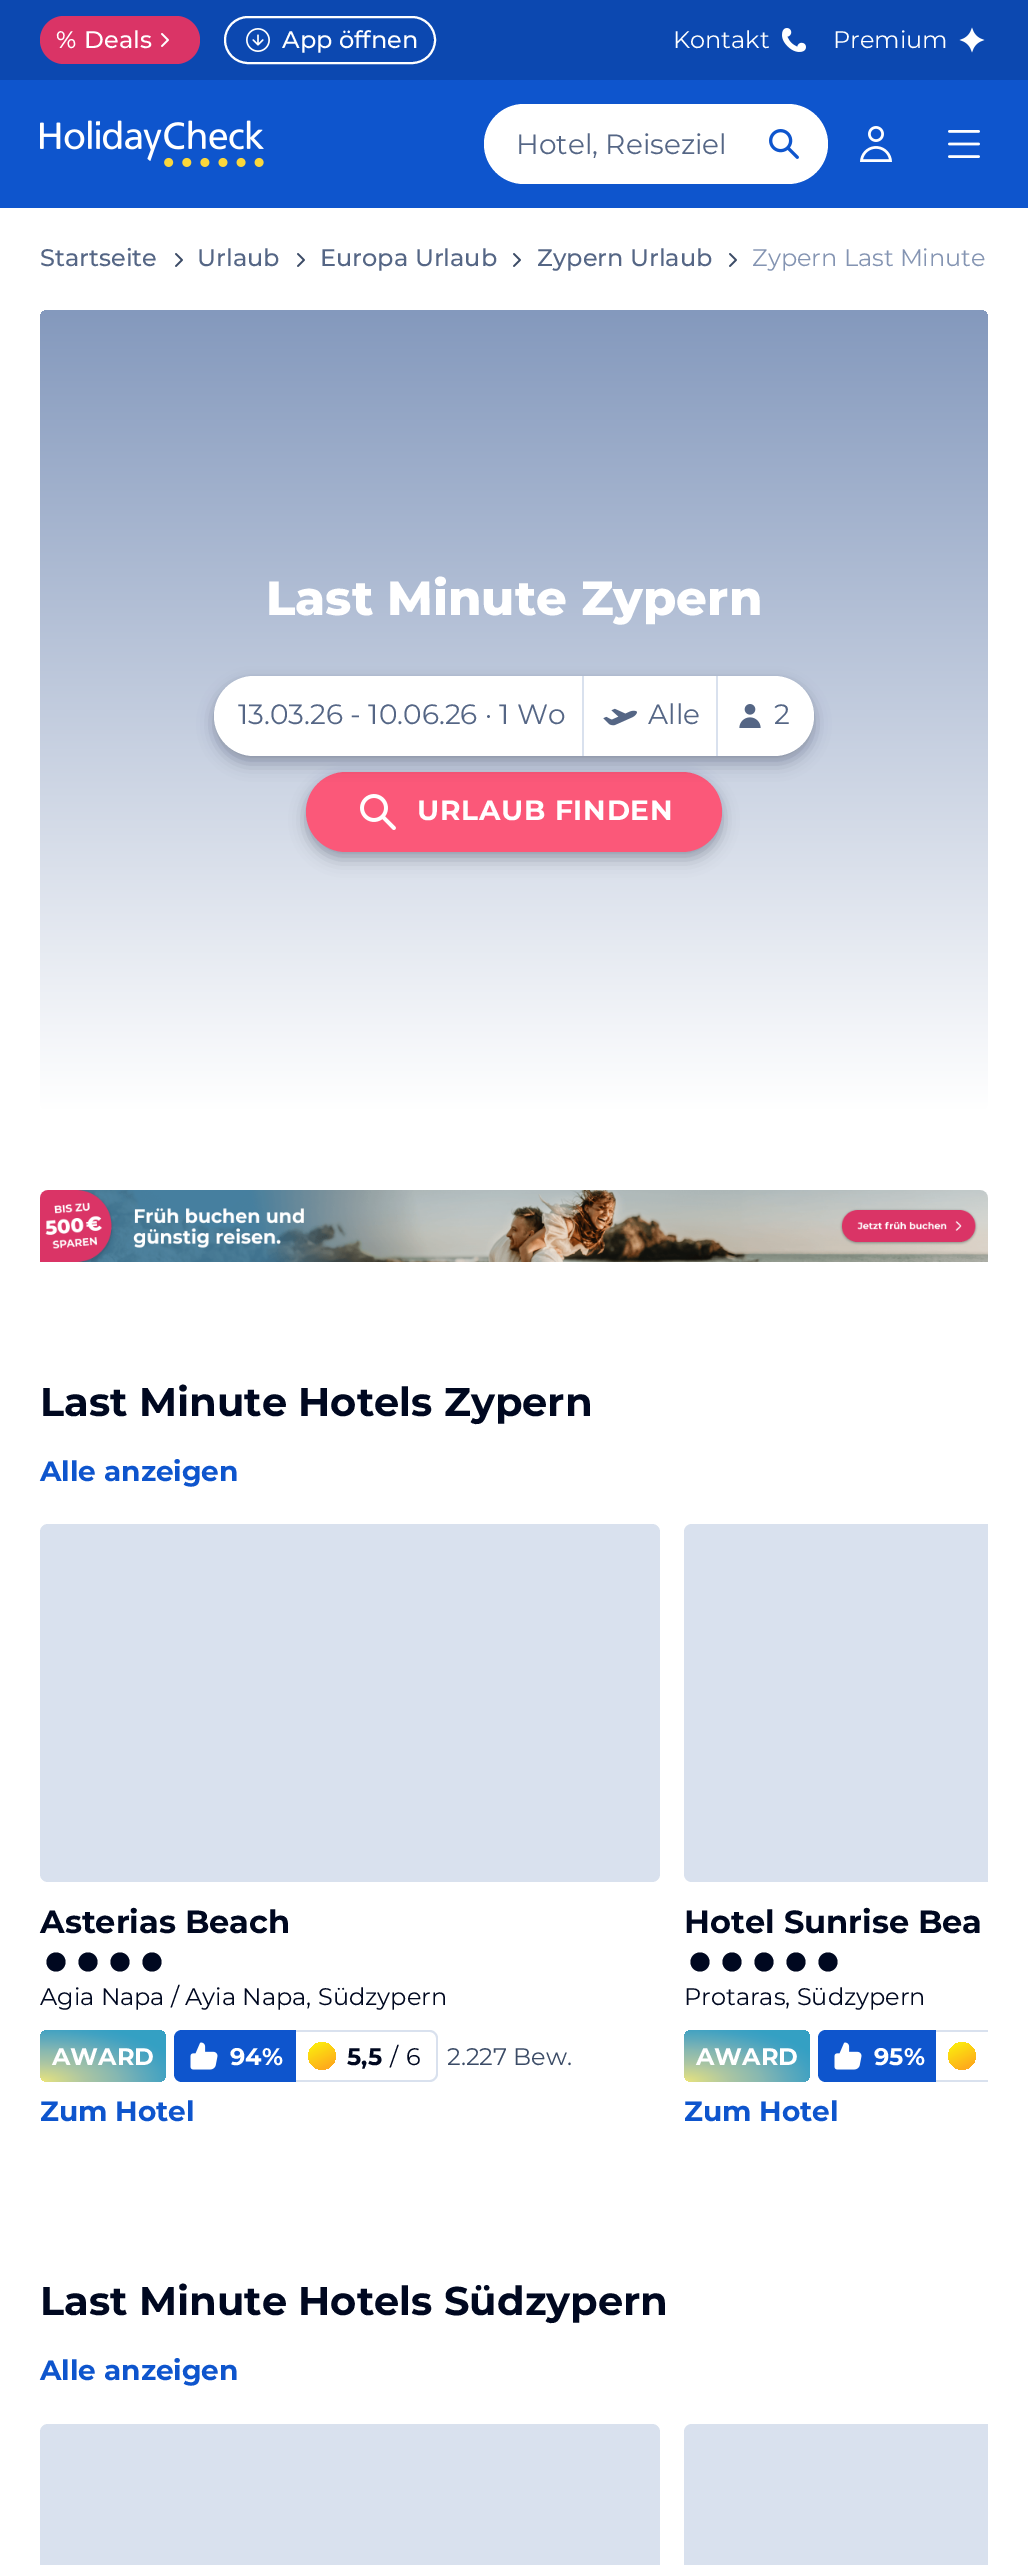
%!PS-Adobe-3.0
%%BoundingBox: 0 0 1028 2565
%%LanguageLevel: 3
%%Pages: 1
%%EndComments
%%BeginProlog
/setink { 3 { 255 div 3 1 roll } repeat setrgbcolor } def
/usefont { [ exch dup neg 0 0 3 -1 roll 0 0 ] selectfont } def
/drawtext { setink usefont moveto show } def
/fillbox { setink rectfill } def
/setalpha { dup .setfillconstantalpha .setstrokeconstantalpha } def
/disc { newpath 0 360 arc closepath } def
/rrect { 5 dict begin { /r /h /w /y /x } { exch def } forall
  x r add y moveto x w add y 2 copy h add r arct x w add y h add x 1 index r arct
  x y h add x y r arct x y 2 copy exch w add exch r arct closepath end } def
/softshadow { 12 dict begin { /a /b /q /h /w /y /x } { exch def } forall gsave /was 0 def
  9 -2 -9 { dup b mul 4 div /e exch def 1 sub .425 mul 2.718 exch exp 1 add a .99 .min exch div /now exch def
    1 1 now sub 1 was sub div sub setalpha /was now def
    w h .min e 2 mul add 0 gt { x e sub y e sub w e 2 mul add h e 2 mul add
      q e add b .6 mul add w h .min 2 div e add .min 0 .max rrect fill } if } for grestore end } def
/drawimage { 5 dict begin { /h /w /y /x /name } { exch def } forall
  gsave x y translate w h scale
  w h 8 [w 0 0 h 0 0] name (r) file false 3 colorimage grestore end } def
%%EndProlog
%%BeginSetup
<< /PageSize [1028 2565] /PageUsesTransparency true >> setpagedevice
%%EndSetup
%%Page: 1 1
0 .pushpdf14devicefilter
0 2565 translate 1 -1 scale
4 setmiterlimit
0 0 1028 2565 255 255 255 fillbox
0 0 1028 80 12 72 176 fillbox
218 52 102 setink
40 16 160 48 24 rrect fill
(%) 56 48 /Montserrat-Medium 24 255 255 255 drawtext
(Deals) 84 48 /Montserrat-Medium 24 255 255 255 drawtext
(assets/img1.rgb) 161 33 8 14 drawimage
2 setlinewidth
225 17 210 46 23 rrect stroke
(assets/img2.rgb) 246 28 24 24 drawimage
(App öffnen) 282 48 /Montserrat-Medium 24 255 255 255 drawtext
(Kontakt) 673 48 /Montserrat-Regular 24 255 255 255 drawtext
(assets/img3.rgb) 782 28 24 24 drawimage
(Premium) 833 48 /Montserrat-Regular 24 255 255 255 drawtext
(assets/img4.rgb) 959 27 26 26 drawimage
0 80 1028 128 14 85 205 fillbox
(assets/img5.rgb) 40 120 224 47 drawimage
255 255 255 setink
484 104 344 80 40 rrect fill
(Hotel, Reiseziel) 516 154 /Montserrat-Regular 28 85 102 133 drawtext
(assets/img6.rgb) 769 129 30 30 drawimage
(assets/img7.rgb) 860 126 32 36 drawimage
(assets/img8.rgb) 948 130 32 28 drawimage
(Startseite) 40 266 /Montserrat-Medium 24 85 102 133 drawtext
(assets/img9.rgb) 175 253 8 14 drawimage
(Urlaub) 197 266 /Montserrat-Medium 24 85 102 133 drawtext
(assets/img9.rgb) 297 253 8 14 drawimage
(Europa Urlaub) 320 266 /Montserrat-Medium 24 85 102 133 drawtext
(assets/img9.rgb) 513 253 8 14 drawimage
(Zypern Urlaub) 537 266 /Montserrat-Medium 24 85 102 133 drawtext
(assets/img9.rgb) 729 253 8 14 drawimage
(Zypern Last Minute) 752 266 /Montserrat-Regular 24 132 148 178 drawtext
gsave 40 310 948 800 8 rrect clip newpath
<< /ShadingType 2 /ColorSpace /DeviceRGB /Coords [514 310 514 1110] /Extend [true true] /Function << /FunctionType 2 /Domain [0 1] /C0 [0.518 0.6 0.741] /C1 [1 1 1] /N 1 >> >> shfill grestore
(Last Minute Zypern) 266 615 /Montserrat-ExtraBold 48 255 255 255 drawtext
0 8 32 setink
214 678 600 80 40 4 0.1 softshadow
306 774 416 80 40 4 0.1 softshadow
306 780 416 80 40 8 0.24 softshadow
251 88 121 setink
306 772 416 80 40 rrect fill
0 8 32 setink
214 684 600 80 40 8 0.24 softshadow
255 255 255 setink
214 676 600 80 40 rrect fill
(13.03.26 - 10.06.26 · 1 Wo) 238 724 /Montserrat-Regular 28 85 102 133 drawtext
582 676 2 80 217 225 238 fillbox
(assets/img10.rgb) 603 708 34 18 drawimage
(Alle) 648 724 /Montserrat-Regular 28 85 102 133 drawtext
716 676 2 80 217 225 238 fillbox
(assets/img11.rgb) 739 704 22 24 drawimage
(2) 774 724 /Montserrat-Regular 28 85 102 133 drawtext
(assets/img12.rgb) 360 794 36 36 drawimage
/Montserrat-Bold 28 usefont
255 255 255 setink
417 820 moveto 0.75 0 (URLAUB FINDEN) ashow
(assets/img13.rgb) 40 1190 948 72 drawimage
(Last Minute Hotels Zypern) 40 1416 /Montserrat-Bold 40 0 8 32 drawtext
(Alle anzeigen) 40 1481 /Montserrat-Bold 28 14 85 205 drawtext
217 225 238 setink
40 1524 620 358 8 rrect fill
(Asterias Beach) 40 1933 /Montserrat-Bold 32 0 8 32 drawtext
56 1962 9.5 disc fill
88 1962 9.5 disc fill
120 1962 9.5 disc fill
152 1962 9.5 disc fill
(Agia Napa / Ayia Napa, Südzypern) 40 2005 /Montserrat-Regular 24 0 8 32 drawtext
gsave 40 2030 126 52 8 rrect clip newpath 40 2082 translate 146 60 scale
<< /ShadingType 3 /ColorSpace /DeviceRGB /Coords [0 0 0 0 0 1] /Extend [true true] /Function << /FunctionType 3 /Domain [0 1] /Functions [<< /FunctionType 2 /Domain [0 1] /C0 [0.988 0.929 0.404] /C1 [0.875 0.875 0.514] /N 1 >> << /FunctionType 2 /Domain [0 1] /C0 [0.875 0.875 0.514] /C1 [0.69 0.784 0.631] /N 1 >> << /FunctionType 2 /Domain [0 1] /C0 [0.69 0.784 0.631] /C1 [0.522 0.718 0.698] /N 1 >> << /FunctionType 2 /Domain [0 1] /C0 [0.522 0.718 0.698] /C1 [0.373 0.667 0.737] /N 1 >> << /FunctionType 2 /Domain [0 1] /C0 [0.373 0.667 0.737] /C1 [0.255 0.635 0.761] /N 1 >> << /FunctionType 2 /Domain [0 1] /C0 [0.255 0.635 0.761] /C1 [0.204 0.627 0.765] /N 1 >>] /Bounds [0.05 0.29 0.54 0.72 0.88] /Encode [0 1 0 1 0 1 0 1 0 1 0 1] >> >> shfill grestore
(AWARD) 52 2065 /Montserrat-Bold 24 255 255 255 drawtext
14 85 205 setink
182 2030 moveto 296 2030 lineto 296 2082 lineto 182 2082 lineto 177.5 2082 174 2078.5 174 2074 curveto 174 2038 lineto 174 2033.5 177.5 2030 182 2030 curveto closepath fill
(assets/img14.rgb) 190 2042 28 28 drawimage
(94%) 230 2065 /Montserrat-Bold 24 255 255 255 drawtext
217 225 238 setink
296 2030 moveto 430 2030 lineto 434 2030 438 2034 438 2038 curveto 438 2074 lineto 438 2078 434 2082 430 2082 curveto 296 2082 lineto closepath 296 2032 moveto 430 2032 lineto 433 2032 436 2035 436 2038 curveto 436 2074 lineto 436 2077 433 2080 430 2080 curveto 296 2080 lineto closepath eofill
gsave 322 2056 13.5 disc clip newpath
<< /ShadingType 2 /ColorSpace /DeviceRGB /Coords [316 2045 327 2067] /Extend [true true] /Function << /FunctionType 2 /Domain [0 1] /C0 [0.988 0.906 0.059] /C1 [0.996 0.675 0.106] /N 1 >> >> shfill grestore
(5,5) 347 2065 /Montserrat-Bold 24 0 8 32 drawtext
(/) 390 2065 /Montserrat-Regular 24 0 8 32 drawtext
(6) 406 2065 /Montserrat-Regular 24 0 8 32 drawtext
(2.227 Bew.) 447 2065 /Montserrat-Regular 24 59 75 102 drawtext
(Zum Hotel) 40 2121 /Montserrat-Bold 28 14 85 205 drawtext
217 225 238 setink
692 1524 moveto 988 1524 lineto 988 1882 lineto 692 1882 lineto 687.5 1882 684 1878.5 684 1874 curveto 684 1532 lineto 684 1527.5 687.5 1524 692 1524 curveto closepath fill
(Hotel Sunrise Bea) 684 1933 /Montserrat-Bold 32 0 8 32 drawtext
700 1962 9.5 disc fill
732 1962 9.5 disc fill
764 1962 9.5 disc fill
796 1962 9.5 disc fill
828 1962 9.5 disc fill
(Protaras, Südzypern) 684 2005 /Montserrat-Regular 24 0 8 32 drawtext
gsave 684 2030 126 52 8 rrect clip newpath 684 2082 translate 146 60 scale
<< /ShadingType 3 /ColorSpace /DeviceRGB /Coords [0 0 0 0 0 1] /Extend [true true] /Function << /FunctionType 3 /Domain [0 1] /Functions [<< /FunctionType 2 /Domain [0 1] /C0 [0.988 0.929 0.404] /C1 [0.875 0.875 0.514] /N 1 >> << /FunctionType 2 /Domain [0 1] /C0 [0.875 0.875 0.514] /C1 [0.69 0.784 0.631] /N 1 >> << /FunctionType 2 /Domain [0 1] /C0 [0.69 0.784 0.631] /C1 [0.522 0.718 0.698] /N 1 >> << /FunctionType 2 /Domain [0 1] /C0 [0.522 0.718 0.698] /C1 [0.373 0.667 0.737] /N 1 >> << /FunctionType 2 /Domain [0 1] /C0 [0.373 0.667 0.737] /C1 [0.255 0.635 0.761] /N 1 >> << /FunctionType 2 /Domain [0 1] /C0 [0.255 0.635 0.761] /C1 [0.204 0.627 0.765] /N 1 >>] /Bounds [0.05 0.29 0.54 0.72 0.88] /Encode [0 1 0 1 0 1 0 1 0 1 0 1] >> >> shfill grestore
(AWARD) 696 2065 /Montserrat-Bold 24 255 255 255 drawtext
14 85 205 setink
826 2030 moveto 936 2030 lineto 936 2082 lineto 826 2082 lineto 821.5 2082 818 2078.5 818 2074 curveto 818 2038 lineto 818 2033.5 821.5 2030 826 2030 curveto closepath fill
(assets/img14.rgb) 834 2042 28 28 drawimage
(95%) 874 2065 /Montserrat-Bold 24 255 255 255 drawtext
gsave
40 1524 948 672 rectclip
217 225 238 setink
936 2030 moveto 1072 2030 lineto 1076 2030 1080 2034 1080 2038 curveto 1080 2074 lineto 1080 2078 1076 2082 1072 2082 curveto 936 2082 lineto closepath 936 2032 moveto 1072 2032 lineto 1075 2032 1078 2035 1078 2038 curveto 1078 2074 lineto 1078 2077 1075 2080 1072 2080 curveto 936 2080 lineto closepath eofill
grestore
gsave 962 2056 13.5 disc clip newpath
<< /ShadingType 2 /ColorSpace /DeviceRGB /Coords [956 2045 967 2067] /Extend [true true] /Function << /FunctionType 2 /Domain [0 1] /C0 [0.988 0.906 0.059] /C1 [0.996 0.675 0.106] /N 1 >> >> shfill grestore
(Zum Hotel) 684 2121 /Montserrat-Bold 28 14 85 205 drawtext
(Last Minute Hotels Südzypern) 40 2315 /Montserrat-Bold 40 0 8 32 drawtext
(Alle anzeigen) 40 2380 /Montserrat-Bold 28 14 85 205 drawtext
217 225 238 setink
40 2424 620 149 8 rrect fill
692 2424 moveto 988 2424 lineto 988 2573 lineto 692 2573 lineto 687.5 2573 684 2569.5 684 2565 curveto 684 2432 lineto 684 2427.5 687.5 2424 692 2424 curveto closepath fill
.poppdf14devicefilter showpage
%%EOF
